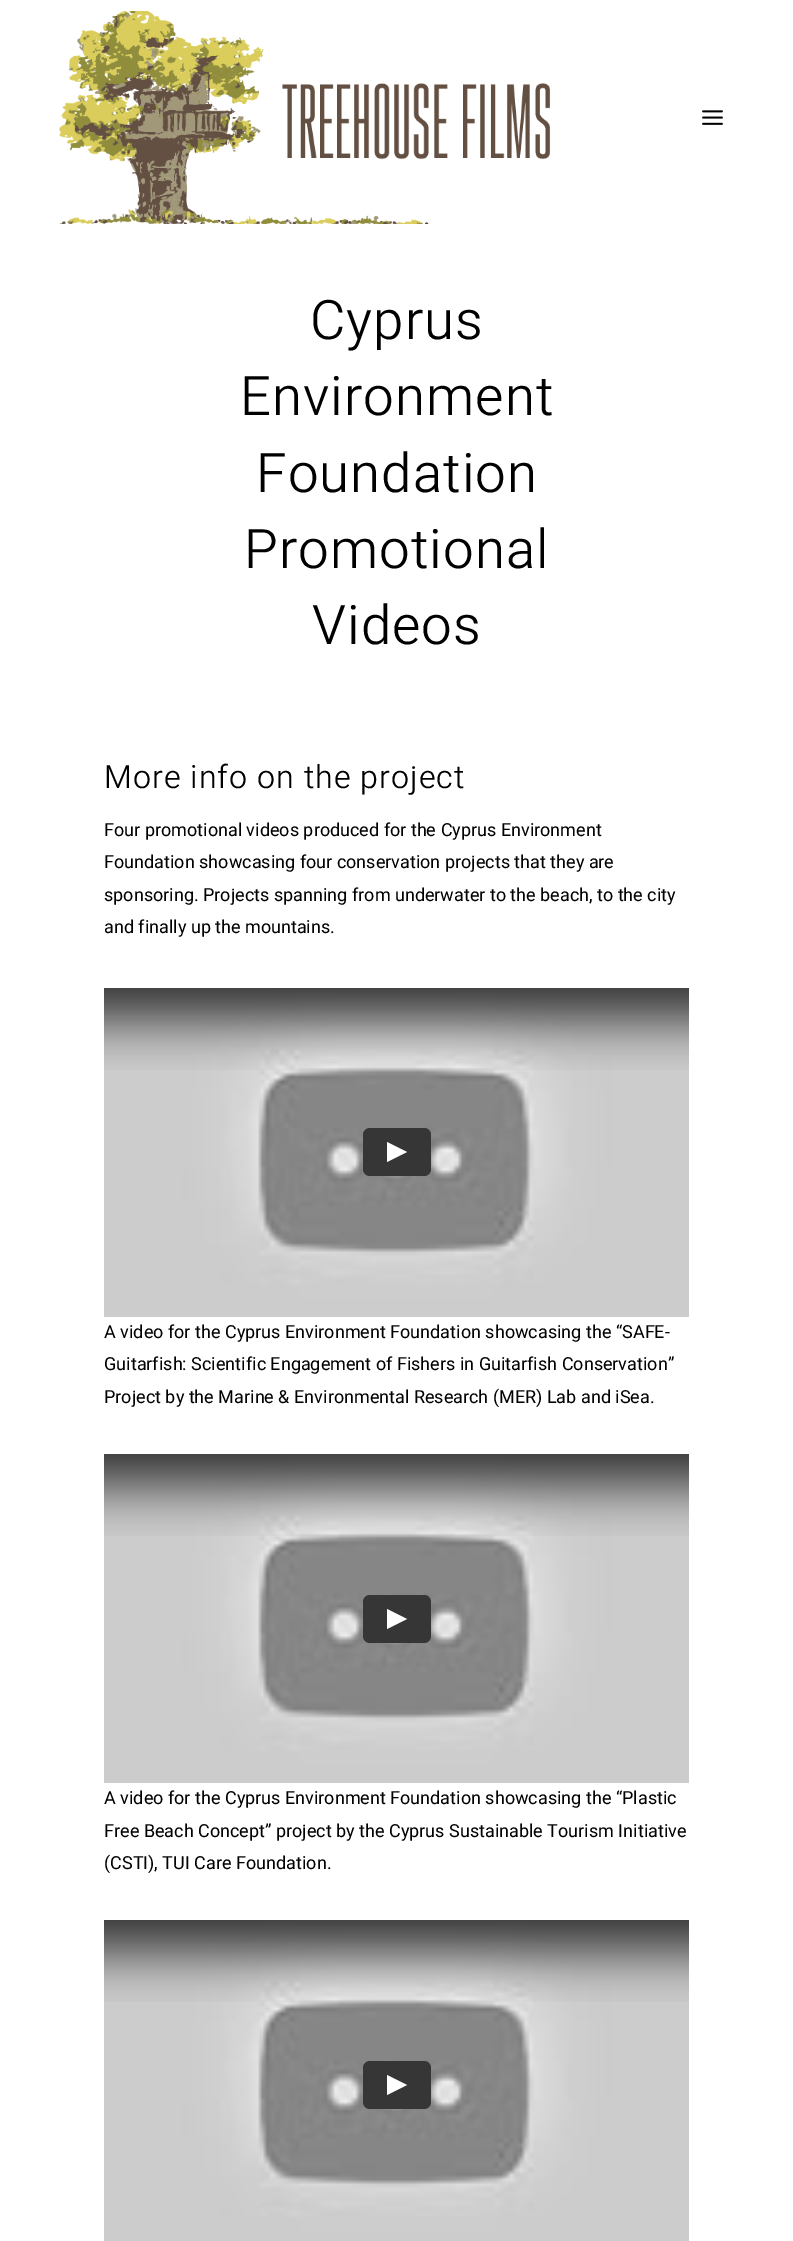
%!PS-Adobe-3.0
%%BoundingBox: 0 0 793 2241
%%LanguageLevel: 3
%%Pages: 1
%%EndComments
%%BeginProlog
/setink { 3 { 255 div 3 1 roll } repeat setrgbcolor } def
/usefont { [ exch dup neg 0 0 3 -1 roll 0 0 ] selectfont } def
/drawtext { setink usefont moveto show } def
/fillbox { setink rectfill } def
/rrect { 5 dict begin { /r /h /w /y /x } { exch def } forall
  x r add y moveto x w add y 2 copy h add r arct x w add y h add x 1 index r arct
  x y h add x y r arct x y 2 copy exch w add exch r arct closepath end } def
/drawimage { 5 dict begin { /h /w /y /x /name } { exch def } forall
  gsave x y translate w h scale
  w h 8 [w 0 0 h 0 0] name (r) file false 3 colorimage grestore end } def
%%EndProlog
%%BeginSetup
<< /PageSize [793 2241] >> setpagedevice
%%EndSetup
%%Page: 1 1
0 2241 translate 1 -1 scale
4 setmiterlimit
0 0 793 2241 255 255 255 fillbox
(assets/img1.rgb) 59 11 491 213 drawimage
(assets/img2.rgb) 702 110 21 15 drawimage
/Heebo-Light 54.5 usefont
0 0 0 setink
310 339 moveto 1 0 (Cyprus) ashow
240 415 moveto 1 0 (Environment) ashow
256 492 moveto 1 0 (Foundation) ashow
244 568 moveto 1 0 (Promotional) ashow
312 644 moveto 1 0 (Videos) ashow
/Heebo-Light 32.1 usefont
104 788 moveto 1 0 (More info on the project) ashow
(Four promotional videos produced for the Cyprus Environment) 104 836 /Heebo-Regular 18 0 0 0 drawtext
(Foundation showcasing four conservation projects that they are) 104 868 /Heebo-Regular 18 0 0 0 drawtext
(sponsoring. Projects spanning from underwater to the beach, to the city) 104 901 /Heebo-Regular 18 0 0 0 drawtext
(and finally up the mountains.) 104 933 /Heebo-Regular 18 0 0 0 drawtext
(assets/img3.rgb) 104 988 585 329 drawimage
(assets/img4.rgb) 104 988 585 82 drawimage
54 54 54 setink
363 1128 68 48 7 rrect fill
255 255 255 setink
387 1162 moveto 387 1142 lineto 407 1152 lineto closepath fill
(A video for the Cyprus Environment Foundation showcasing the “SAFE-) 104 1338 /Heebo-Regular 18 0 0 0 drawtext
(Guitarfish: Scientific Engagement of Fishers in Guitarfish Conservation”) 104 1370 /Heebo-Regular 18 0 0 0 drawtext
(Project by the Marine & Environmental Research \(MER\) Lab and iSea.) 104 1403 /Heebo-Regular 18 0 0 0 drawtext
(assets/img5.rgb) 104 1454 585 329 drawimage
(assets/img4.rgb) 104 1454 585 82 drawimage
54 54 54 setink
363 1595 68 48 7 rrect fill
255 255 255 setink
387 1629 moveto 387 1609 lineto 407 1619 lineto closepath fill
(A video for the Cyprus Environment Foundation showcasing the “Plastic) 104 1804 /Heebo-Regular 18 0 0 0 drawtext
(Free Beach Concept” project by the Cyprus Sustainable Tourism Initiative) 104 1837 /Heebo-Regular 18 0 0 0 drawtext
(\(CSTI\), TUI Care Foundation.) 104 1869 /Heebo-Regular 18 0 0 0 drawtext
(assets/img6.rgb) 104 1920 585 321 drawimage
(assets/img4.rgb) 104 1920 585 82 drawimage
54 54 54 setink
363 2061 68 48 7 rrect fill
255 255 255 setink
387 2095 moveto 387 2075 lineto 407 2085 lineto closepath fill
showpage
%%EOF
